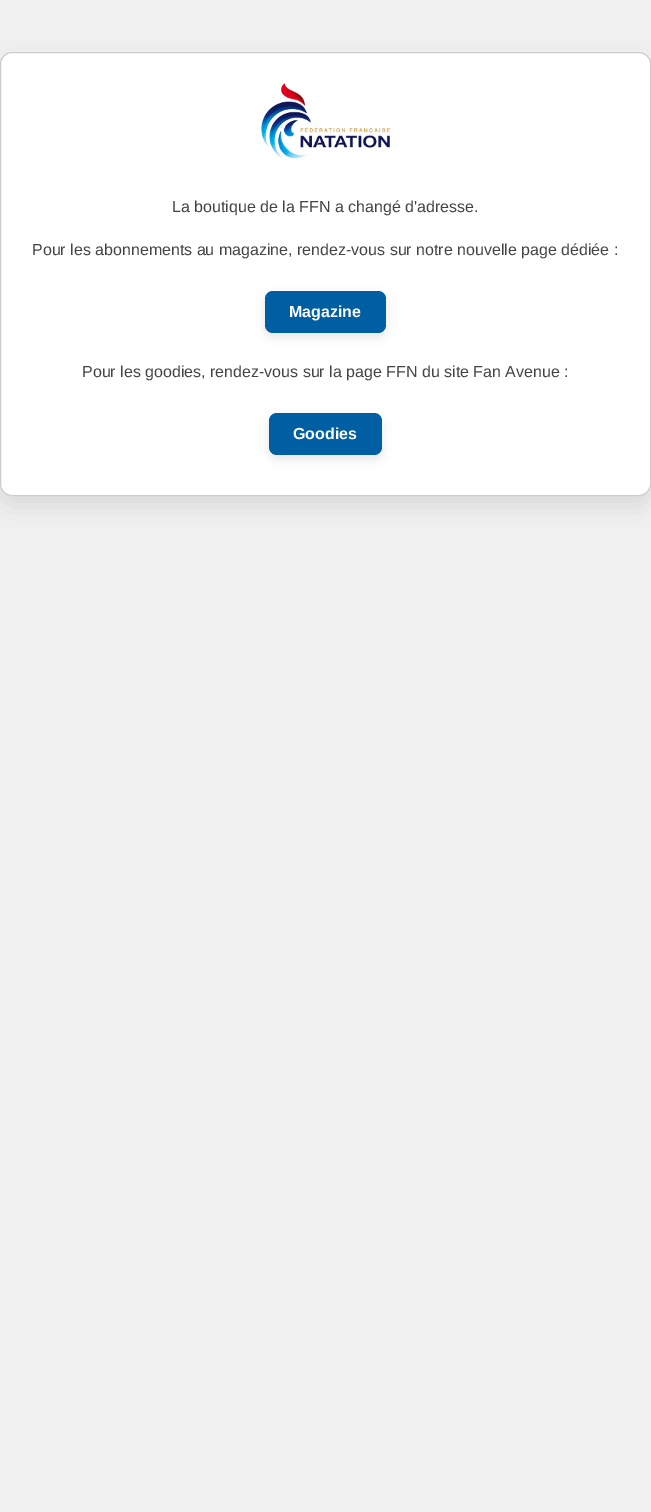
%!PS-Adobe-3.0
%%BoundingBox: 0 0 651 1512
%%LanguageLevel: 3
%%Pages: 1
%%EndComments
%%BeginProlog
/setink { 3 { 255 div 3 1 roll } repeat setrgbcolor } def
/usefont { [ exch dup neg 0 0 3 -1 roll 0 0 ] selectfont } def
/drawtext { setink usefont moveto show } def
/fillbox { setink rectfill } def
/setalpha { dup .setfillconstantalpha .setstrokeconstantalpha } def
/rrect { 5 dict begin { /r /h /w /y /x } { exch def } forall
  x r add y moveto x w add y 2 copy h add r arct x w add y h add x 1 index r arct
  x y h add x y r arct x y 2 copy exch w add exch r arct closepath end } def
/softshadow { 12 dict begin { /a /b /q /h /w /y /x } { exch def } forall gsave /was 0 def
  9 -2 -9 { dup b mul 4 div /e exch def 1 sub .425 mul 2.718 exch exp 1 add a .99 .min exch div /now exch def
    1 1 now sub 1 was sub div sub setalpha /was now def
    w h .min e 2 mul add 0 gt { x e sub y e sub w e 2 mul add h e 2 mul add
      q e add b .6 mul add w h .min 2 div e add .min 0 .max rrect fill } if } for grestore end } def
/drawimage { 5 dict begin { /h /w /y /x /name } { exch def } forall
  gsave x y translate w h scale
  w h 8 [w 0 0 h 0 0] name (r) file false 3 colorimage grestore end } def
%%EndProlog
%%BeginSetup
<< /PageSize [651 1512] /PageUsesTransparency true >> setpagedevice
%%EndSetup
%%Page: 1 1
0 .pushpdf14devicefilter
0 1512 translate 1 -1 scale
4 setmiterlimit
0 0 651 1512 241 241 241 fillbox
0 0 0 setink
0 62 651 444 12 12.5 0.1 softshadow
255 255 255 setink
0.5 52.5 650 443 11.5 rrect gsave fill grestore
204 204 204 setink
stroke
(assets/img1.rgb) 261 83 129 76 drawimage
(La boutique de la FFN a changé d'adresse.) 172 212 /LiberationSans-Regular 16 68 68 68 drawtext
(Pour les abonnements au magazine, rendez-vous sur notre nouvelle page dédiée :) 32 255 /LiberationSans-Regular 16 68 68 68 drawtext
0 0 0 setink
265 295 121 42 8 5 0.1 softshadow
0 94 162 setink
265 291 121 42 8 rrect fill
(Magazine) 289 317 /LiberationSans-Bold 16 255 255 255 drawtext
(Pour les goodies, rendez-vous sur la page FFN du site Fan Avenue :) 82 377 /LiberationSans-Regular 16 68 68 68 drawtext
0 0 0 setink
269 417 113 42 8 5 0.1 softshadow
0 94 162 setink
269 413 113 42 8 rrect fill
(Goodies) 293 439 /LiberationSans-Bold 16 255 255 255 drawtext
.poppdf14devicefilter showpage
%%EOF
